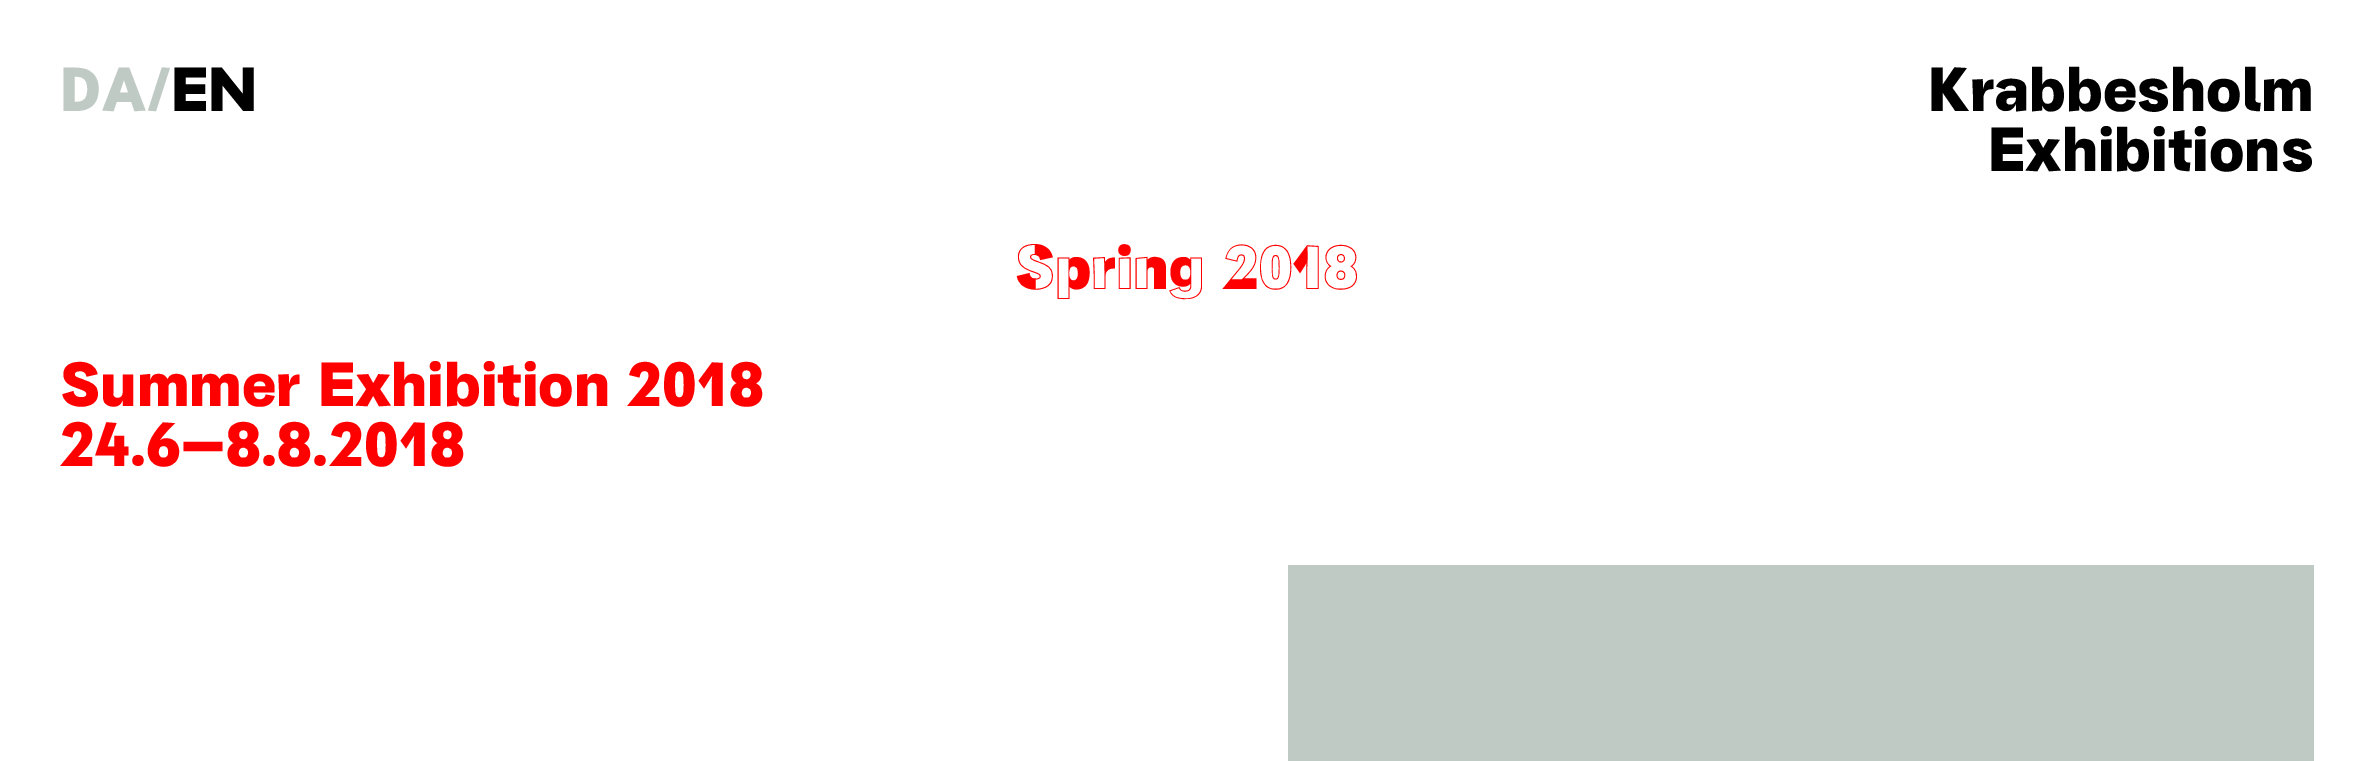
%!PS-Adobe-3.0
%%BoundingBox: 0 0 2373 761
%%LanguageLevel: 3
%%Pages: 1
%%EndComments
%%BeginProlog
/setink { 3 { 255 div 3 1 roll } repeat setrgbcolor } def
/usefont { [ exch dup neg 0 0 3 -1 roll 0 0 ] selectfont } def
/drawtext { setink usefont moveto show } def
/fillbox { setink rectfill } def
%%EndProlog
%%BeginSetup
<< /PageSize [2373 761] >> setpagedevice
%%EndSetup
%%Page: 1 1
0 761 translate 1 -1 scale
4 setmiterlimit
0 0 2373 761 255 255 255 fillbox
(DA/) 60 111 /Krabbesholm-Bold 57.5 192 202 197 drawtext
(EN) 171 111 /Krabbesholm-Bold 57.5 0 0 0 drawtext
(Krabbesholm) 1928 111 /Krabbesholm-Bold 57.5 0 0 0 drawtext
(Exhibitions) 1988 171 /Krabbesholm-Bold 57.5 0 0 0 drawtext
(Spring 2018) 1015 289 /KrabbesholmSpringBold-Bold 57.5 255 0 0 drawtext
(Summer Exhibition 2018) 60 406 /Krabbesholm-Bold 57.5 255 0 0 drawtext
(24.6–8.8.) 60 466 /Krabbesholm-Bold 57.5 255 0 0 drawtext
(2018) 329 466 /Krabbesholm-Bold 57.5 255 0 0 drawtext
1288 565 1026 196 192 202 197 fillbox
showpage
%%EOF
